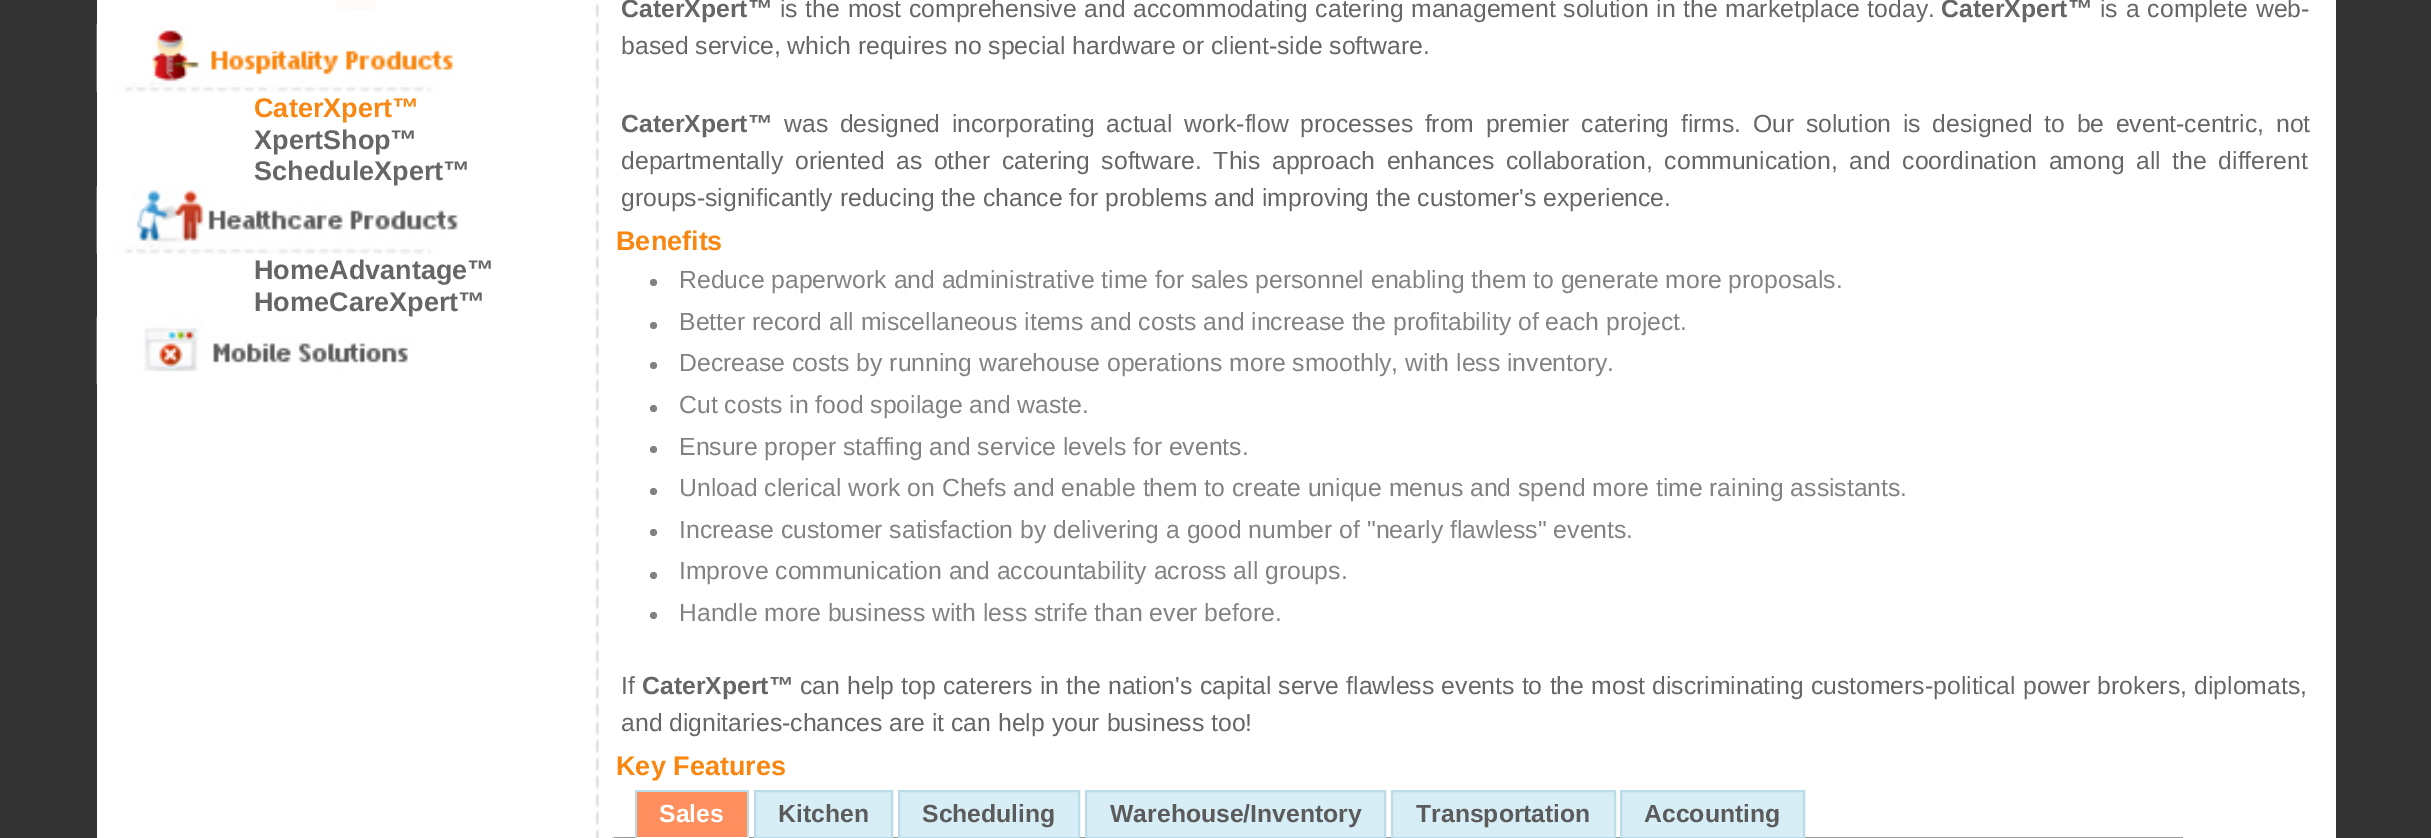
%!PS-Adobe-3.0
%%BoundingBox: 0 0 2431 838
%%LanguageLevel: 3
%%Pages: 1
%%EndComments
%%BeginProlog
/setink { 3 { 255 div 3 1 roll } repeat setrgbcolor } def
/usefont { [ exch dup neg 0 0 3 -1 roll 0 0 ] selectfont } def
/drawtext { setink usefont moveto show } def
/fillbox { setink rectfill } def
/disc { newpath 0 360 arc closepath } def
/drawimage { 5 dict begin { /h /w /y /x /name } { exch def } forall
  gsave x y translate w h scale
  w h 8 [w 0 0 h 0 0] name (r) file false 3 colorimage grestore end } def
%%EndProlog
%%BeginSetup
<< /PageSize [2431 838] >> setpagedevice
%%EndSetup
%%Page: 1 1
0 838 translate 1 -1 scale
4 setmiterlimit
0 0 2431 838 51 51 51 fillbox
97 0 2239 838 255 255 255 fillbox
(assets/img1.rgb) 336 0 41 10 drawimage
(assets/img2.rgb) 96 24 357 68 drawimage
(CaterXpert™) 254 117 /LiberationSans-Bold 27 249 134 16 drawtext
(XpertShop™) 254 149 /LiberationSans-Bold 27 102 102 102 drawtext
(ScheduleXpert™) 254 180 /LiberationSans-Bold 27 102 102 102 drawtext
(assets/img3.rgb) 96 186 362 68 drawimage
(HomeAdvantage™) 254 279 /LiberationSans-Bold 27 102 102 102 drawtext
(HomeCareXpert™) 254 311 /LiberationSans-Bold 27 102 102 102 drawtext
(assets/img4.rgb) 96 316 317 69 drawimage
(assets/img5.rgb) 595 3 4 835 drawimage
(CaterXpert™) 621 17 /LiberationSans-Bold 24.75 102 102 102 drawtext
/LiberationSans-Regular 24.75 usefont
780 17 moveto 0.75 0 32 (is the most comprehensive and accommodating catering management solution in the marketplace today.) widthshow
(CaterXpert™) 1941 17 /LiberationSans-Bold 24.75 102 102 102 drawtext
/LiberationSans-Regular 24.75 usefont
2100 17 moveto 1 0 32 (is a complete web-) widthshow
(based service, which requires no special hardware or client-side software.) 621 54 /LiberationSans-Regular 24.75 102 102 102 drawtext
(CaterXpert™) 621 132 /LiberationSans-Bold 24.75 102 102 102 drawtext
/LiberationSans-Regular 24.75 usefont
784 132 moveto 4.75 0 32 (was designed incorporating actual work-flow processes from premier catering firms. Our solution is designed to be event-centric, not) widthshow
621 169 moveto 4.75 0 32 (departmentally oriented as other catering software. This approach enhances collaboration, communication, and coordination among all the different) widthshow
(groups-significantly reducing the chance for problems and improving the customer's experience.) 621 206 /LiberationSans-Regular 24.75 102 102 102 drawtext
(Benefits) 616 250 /LiberationSans-Bold 27 249 134 16 drawtext
130 130 130 setink
653.5 282.5 3.5 disc fill
(Reduce paperwork and administrative time for sales personnel enabling them to generate more proposals.) 679 288 /LiberationSans-Regular 24.75 130 130 130 drawtext
653.5 325.5 3.5 disc fill
(Better record all miscellaneous items and costs and increase the profitability of each project.) 679 330 /LiberationSans-Regular 24.75 130 130 130 drawtext
653.5 365.5 3.5 disc fill
(Decrease costs by running warehouse operations more smoothly, with less inventory.) 679 371 /LiberationSans-Regular 24.75 130 130 130 drawtext
653.5 408.5 3.5 disc fill
(Cut costs in food spoilage and waste.) 679 413 /LiberationSans-Regular 24.75 130 130 130 drawtext
653.5 449.5 3.5 disc fill
(Ensure proper staffing and service levels for events.) 679 455 /LiberationSans-Regular 24.75 130 130 130 drawtext
653.5 491.5 3.5 disc fill
(Unload clerical work on Chefs and enable them to create unique menus and spend more time raining assistants.) 679 496 /LiberationSans-Regular 24.75 130 130 130 drawtext
653.5 532.5 3.5 disc fill
(Increase customer satisfaction by delivering a good number of "nearly flawless" events.) 679 538 /LiberationSans-Regular 24.75 130 130 130 drawtext
653.5 575.5 3.5 disc fill
(Improve communication and accountability across all groups.) 679 579 /LiberationSans-Regular 24.75 130 130 130 drawtext
653.5 615.5 3.5 disc fill
(Handle more business with less strife than ever before.) 679 621 /LiberationSans-Regular 24.75 130 130 130 drawtext
(If) 621 694 /LiberationSans-Regular 24.75 102 102 102 drawtext
(CaterXpert™) 642 694 /LiberationSans-Bold 24.75 102 102 102 drawtext
/LiberationSans-Regular 24.75 usefont
800 694 moveto 0.4 0 32 (can help top caterers in the nation's capital serve flawless events to the most discriminating customers-political power brokers, diplomats,) widthshow
(and dignitaries-chances are it can help your business too!) 621 731 /LiberationSans-Regular 24.75 102 102 102 drawtext
(Key Features) 616 775 /LiberationSans-Bold 27 249 134 16 drawtext
637 792 110 45 255 143 94 fillbox
635 790 114 2 186 219 232 fillbox
612 837 1571 1 153 153 153 fillbox
747 790 2 48 186 219 232 fillbox
635 837 114 1 255 255 255 fillbox
635 790 2 48 186 219 232 fillbox
(Sales) 659 822 /LiberationSans-Bold 24.75 255 255 255 drawtext
216 238 247 setink
755 791 moveto 892 791 lineto 892 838 lineto 755 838 lineto closepath gsave fill grestore
186 219 232 setink
2 setlinewidth
stroke
(Kitchen) 778 822 /LiberationSans-Bold 24.75 91 91 91 drawtext
216 238 247 setink
899 791 moveto 1079 791 lineto 1079 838 lineto 899 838 lineto closepath gsave fill grestore
186 219 232 setink
stroke
(Scheduling) 922 822 /LiberationSans-Bold 24.75 91 91 91 drawtext
216 238 247 setink
1086 791 moveto 1385 791 lineto 1385 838 lineto 1086 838 lineto closepath gsave fill grestore
186 219 232 setink
stroke
(Warehouse/Inventory) 1110 822 /LiberationSans-Bold 24.75 91 91 91 drawtext
216 238 247 setink
1392 791 moveto 1615 791 lineto 1615 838 lineto 1392 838 lineto closepath gsave fill grestore
186 219 232 setink
stroke
(Transportation) 1416 822 /LiberationSans-Bold 24.75 91 91 91 drawtext
216 238 247 setink
1621 791 moveto 1804 791 lineto 1804 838 lineto 1621 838 lineto closepath gsave fill grestore
186 219 232 setink
stroke
(Accounting) 1644 822 /LiberationSans-Bold 24.75 91 91 91 drawtext
612 837 2 1 204 204 204 fillbox
showpage
%%EOF
